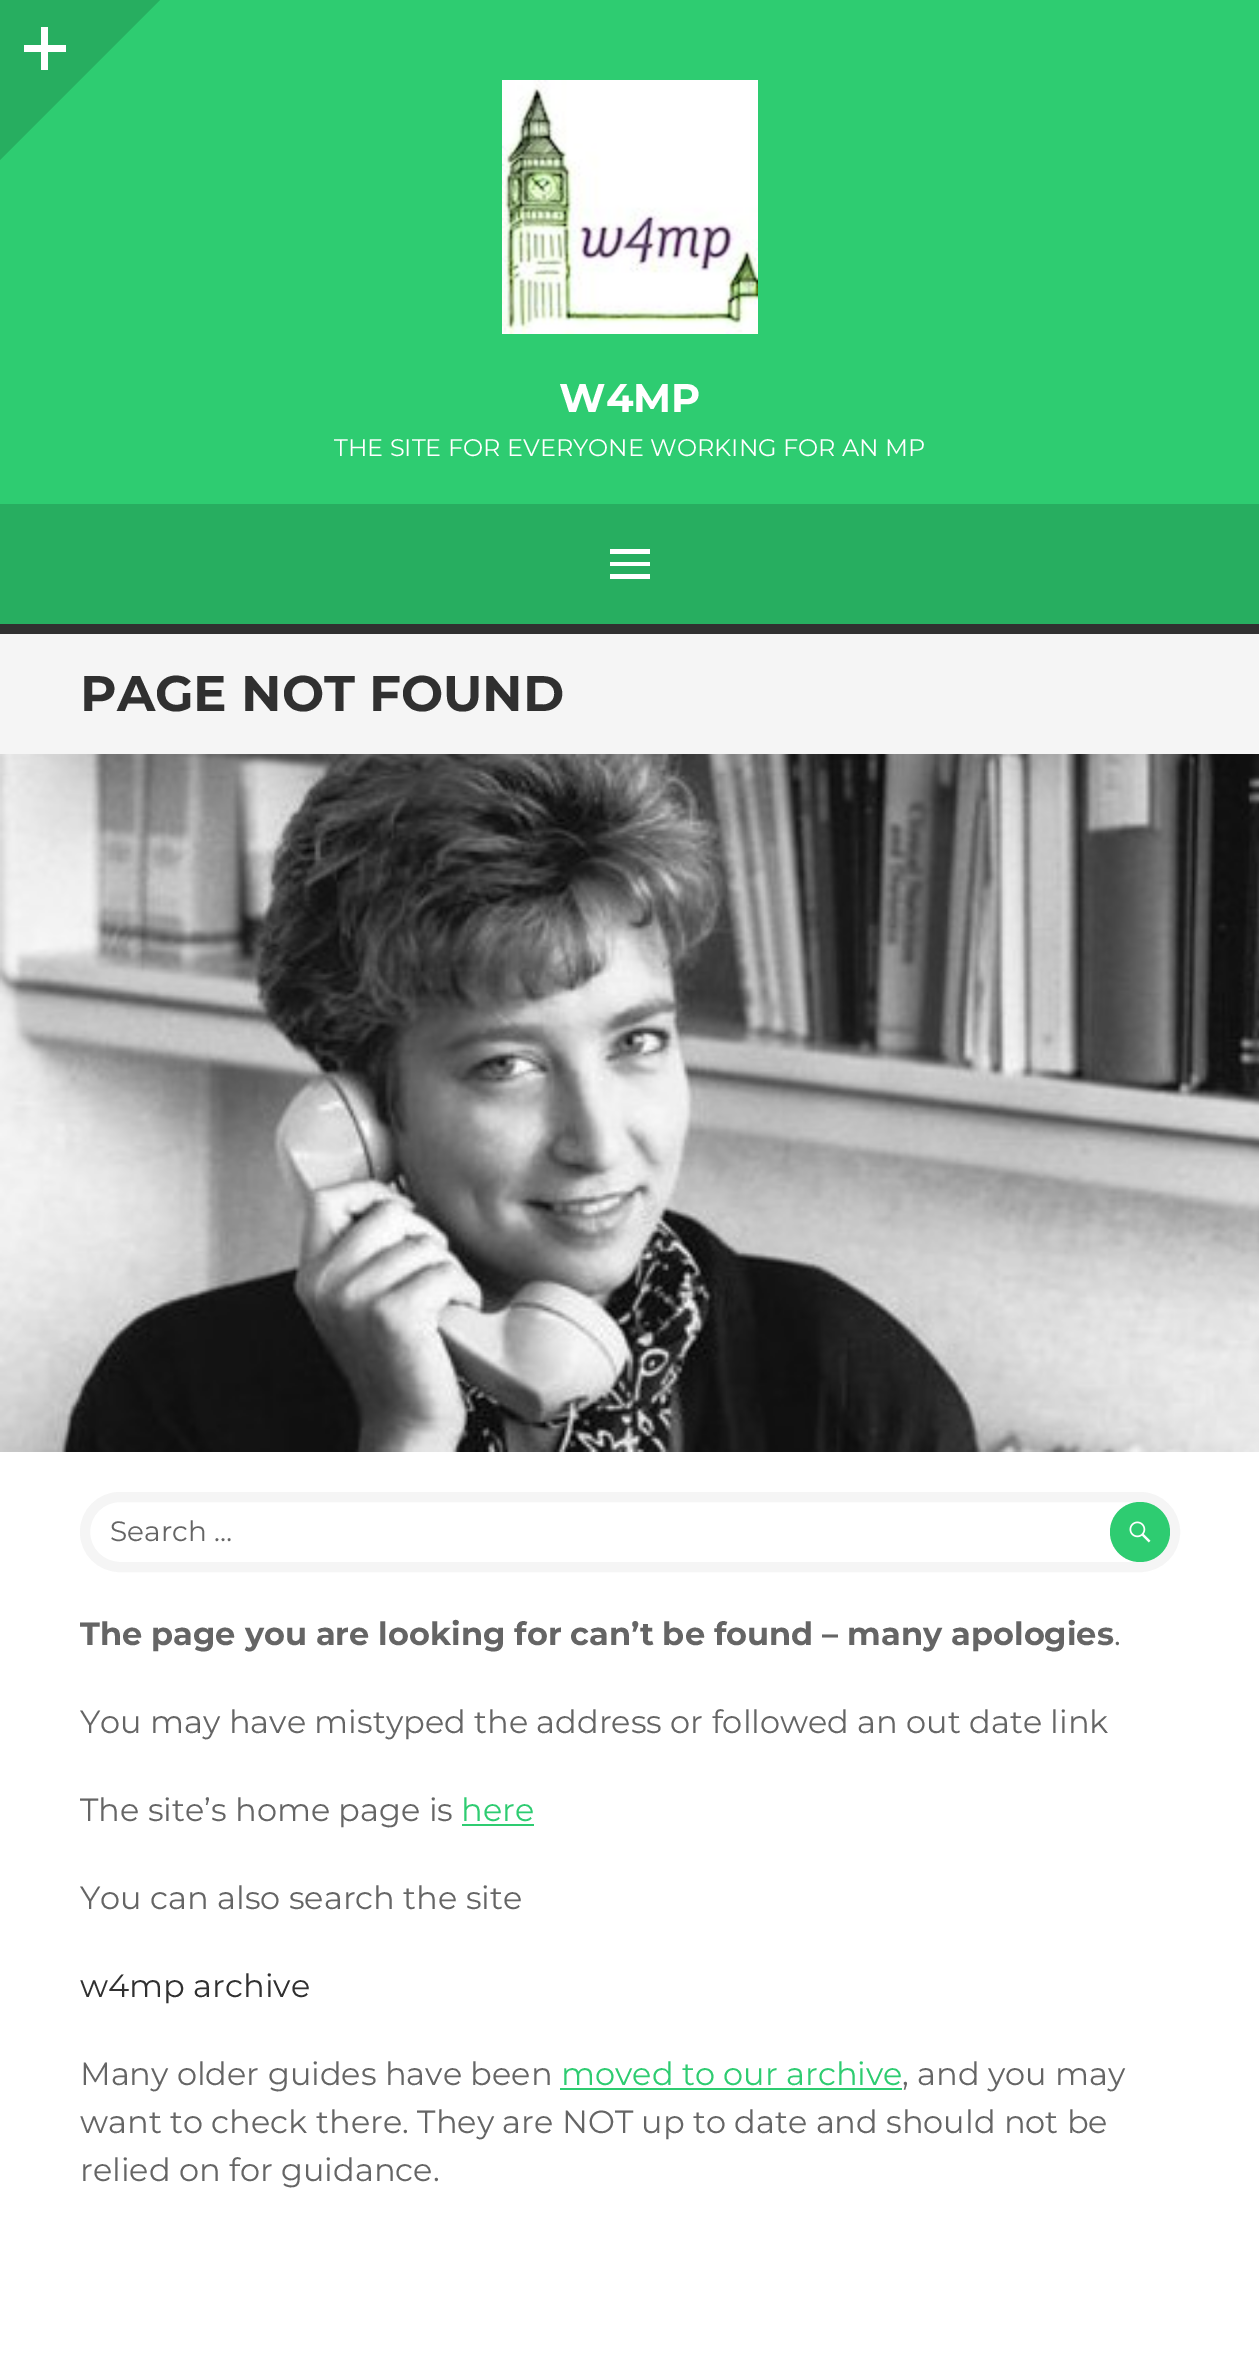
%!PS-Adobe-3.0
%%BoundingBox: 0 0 1259 2367
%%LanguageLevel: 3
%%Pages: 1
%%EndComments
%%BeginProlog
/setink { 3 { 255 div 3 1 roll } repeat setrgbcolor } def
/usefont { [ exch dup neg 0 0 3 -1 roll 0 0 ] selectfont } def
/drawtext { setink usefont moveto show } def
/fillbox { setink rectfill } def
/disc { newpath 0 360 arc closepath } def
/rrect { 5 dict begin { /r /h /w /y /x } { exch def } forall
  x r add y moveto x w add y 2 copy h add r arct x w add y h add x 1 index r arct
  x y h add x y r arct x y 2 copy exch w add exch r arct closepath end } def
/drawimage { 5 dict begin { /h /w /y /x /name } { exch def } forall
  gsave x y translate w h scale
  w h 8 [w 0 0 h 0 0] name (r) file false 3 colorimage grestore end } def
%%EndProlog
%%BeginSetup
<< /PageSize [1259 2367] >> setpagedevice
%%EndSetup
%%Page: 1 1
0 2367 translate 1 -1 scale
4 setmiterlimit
0 0 1259 2367 255 255 255 fillbox
0 0 1259 504 46 204 113 fillbox
0 0 80 80 39 174 96 fillbox
255 255 255 setink
48 52 moveto 48 70 lineto 41 70 lineto 41 52 lineto 24 52 lineto 24 45 lineto 41 45 lineto 41 27 lineto 48 27 lineto 48 45 lineto 66 45 lineto 66 52 lineto closepath fill
39 174 96 setink
80 0 moveto 160 0 lineto 80 80 lineto closepath fill
0 80 moveto 80 80 lineto 0 160 lineto closepath fill
(assets/img1.rgb) 502 80 256 254 drawimage
(W4MP) 559 412 /Montserrat-Bold 40 255 255 255 drawtext
(THE SITE FOR EVERYONE WORKING FOR AN MP) 334 456 /Montserrat-Regular 24 255 255 255 drawtext
0 504 1259 120 39 174 96 fillbox
0 624 1259 10 48 48 48 fillbox
255 255 255 setink
650 549 moveto 650 554 lineto 610 554 lineto 610 549 lineto closepath 610 562 moveto 650 562 lineto 650 566 lineto 610 566 lineto closepath 610 574 moveto 650 574 lineto 650 579 lineto 610 579 lineto closepath fill
0 634 1259 120 245 245 245 fillbox
(PAGE NOT FOUND) 80 711 /Montserrat-Bold 50 48 48 48 drawtext
(assets/img2.rgb) 0 754 1259 698 drawimage
245 245 245 setink
10 setlinewidth
85 1497 1090 70 35 rrect stroke
(Search …) 110 1541 /Montserrat-Regular 28 101 101 101 drawtext
46 204 113 setink
1140 1532 30 disc fill
(assets/img3.rgb) 1129 1521 22 22 drawimage
(The page you are looking for can’t be found – many apologies) 80 1645 /Montserrat-Bold 32 101 101 101 drawtext
(.) 1114 1645 /Montserrat-Regular 32 101 101 101 drawtext
(You may have mistyped the address or followed an out date link) 80 1733 /Montserrat-Regular 32 101 101 101 drawtext
(The site’s home page is) 80 1821 /Montserrat-Regular 32 101 101 101 drawtext
(here) 461 1821 /Montserrat-Regular 32 46 204 113 drawtext
462 1824 72 2 46 204 113 fillbox
(You can also search the site) 80 1909 /Montserrat-Regular 32 101 101 101 drawtext
(w4mp archive) 80 1997 /Montserrat-Regular 32 48 48 48 drawtext
(Many older guides have been) 80 2085 /Montserrat-Regular 32 101 101 101 drawtext
(moved to our archive) 561 2085 /Montserrat-Regular 32 46 204 113 drawtext
560 2088 342 2 46 204 113 fillbox
(, and you may) 902 2085 /Montserrat-Regular 32 101 101 101 drawtext
(want to check there. They are NOT up to date and should not be) 80 2133 /Montserrat-Regular 32 101 101 101 drawtext
(relied on for guidance.) 80 2181 /Montserrat-Regular 32 101 101 101 drawtext
showpage
%%EOF
